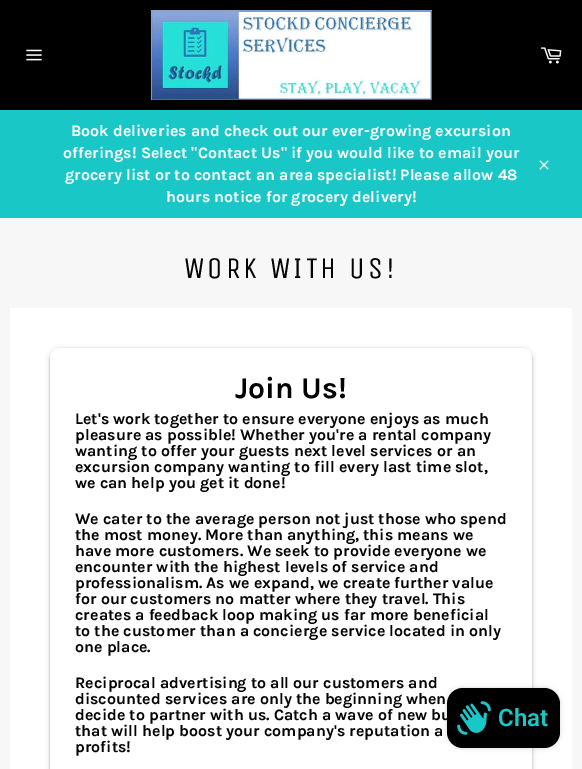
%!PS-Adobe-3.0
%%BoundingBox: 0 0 582 769
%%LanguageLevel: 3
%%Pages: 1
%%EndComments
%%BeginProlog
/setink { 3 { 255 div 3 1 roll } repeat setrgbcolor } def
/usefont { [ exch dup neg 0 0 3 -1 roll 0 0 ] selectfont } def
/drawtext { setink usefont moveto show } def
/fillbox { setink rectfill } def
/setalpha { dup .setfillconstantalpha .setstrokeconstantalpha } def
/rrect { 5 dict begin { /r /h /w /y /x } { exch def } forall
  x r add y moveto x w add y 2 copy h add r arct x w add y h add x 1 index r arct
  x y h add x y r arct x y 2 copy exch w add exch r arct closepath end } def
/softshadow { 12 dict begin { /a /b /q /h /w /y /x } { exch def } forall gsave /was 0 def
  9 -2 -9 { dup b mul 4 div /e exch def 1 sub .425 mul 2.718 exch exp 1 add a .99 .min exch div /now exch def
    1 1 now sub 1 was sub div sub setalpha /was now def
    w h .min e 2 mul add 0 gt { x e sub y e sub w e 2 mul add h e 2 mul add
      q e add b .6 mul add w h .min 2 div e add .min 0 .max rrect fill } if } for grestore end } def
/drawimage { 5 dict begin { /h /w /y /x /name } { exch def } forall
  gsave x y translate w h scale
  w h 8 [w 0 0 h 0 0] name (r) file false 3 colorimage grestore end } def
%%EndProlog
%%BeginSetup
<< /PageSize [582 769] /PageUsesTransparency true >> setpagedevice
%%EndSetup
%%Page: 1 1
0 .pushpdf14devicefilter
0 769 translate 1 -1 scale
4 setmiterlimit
0 0 582 769 247 247 247 fillbox
0 0 582 110 0 0 0 fillbox
(assets/img1.rgb) 26 49 16 12 drawimage
(assets/img2.rgb) 151 10 281 90 drawimage
(assets/img3.rgb) 540 47 22 17 drawimage
0 110 582 108 25 199 199 fillbox
(Book deliveries and check out our ever-growing excursion) 71 136 /Karla-Bold 16 255 255 255 drawtext
(offerings! Select "Contact Us" if you would like to email your) 63 158 /Karla-Bold 16 255 255 255 drawtext
(grocery list or to contact an area specialist! Please allow 48) 65 180 /Karla-Bold 16 255 255 255 drawtext
(hours notice for grocery delivery!) 166 202 /Karla-Bold 16 255 255 255 drawtext
(assets/img4.rgb) 539 160 10 10 drawimage
/UnicaOne-Regular 30 usefont
3 3 3 setink
184 278 moveto 3 0 (WORK WITH US!) ashow
10 308 562 461 255 255 255 fillbox
0 0 0 setink
50 349 482 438 10 2.5 0.2 softshadow
50 350 482 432 10 1 0.14 softshadow
255 255 255 setink
50 348 482 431 10 rrect fill
(Join Us!) 235 398 /Karla-Bold 30 3 3 3 drawtext
(Let's work together to ensure everyone enjoys as much) 75 424 /Karla-Bold 16 3 3 3 drawtext
(pleasure as possible! Whether you're a rental company) 75 440 /Karla-Bold 16 3 3 3 drawtext
(wanting to offer your guests next level services or an) 75 456 /Karla-Bold 16 3 3 3 drawtext
(excursion company wanting to fill every last time slot,) 75 472 /Karla-Bold 16 3 3 3 drawtext
(we can help you get it done!) 75 488 /Karla-Bold 16 3 3 3 drawtext
(We cater to the average person not just those who spend) 75 524 /Karla-Bold 16 3 3 3 drawtext
(the most money. More than anything, this means we) 75 540 /Karla-Bold 16 3 3 3 drawtext
(have more customers. We seek to provide everyone we) 75 556 /Karla-Bold 16 3 3 3 drawtext
(encounter with the highest levels of service and) 75 572 /Karla-Bold 16 3 3 3 drawtext
(professionalism. As we expand, we create further value) 75 588 /Karla-Bold 16 3 3 3 drawtext
(for our customers no matter where they travel. This) 75 604 /Karla-Bold 16 3 3 3 drawtext
(creates a feedback loop making us far more beneficial) 75 620 /Karla-Bold 16 3 3 3 drawtext
(to the customer than a concierge service located in only) 75 636 /Karla-Bold 16 3 3 3 drawtext
(one place.) 75 652 /Karla-Bold 16 3 3 3 drawtext
(Reciprocal advertising to all our customers and) 75 688 /Karla-Bold 16 3 3 3 drawtext
(discounted services are only the beginning when) 75 704 /Karla-Bold 16 3 3 3 drawtext
(decide to partner with us. Catch a wave of new bu) 75 720 /Karla-Bold 16 3 3 3 drawtext
(that will help boost your company's reputation a) 75 736 /Karla-Bold 16 3 3 3 drawtext
(profits!) 75 752 /Karla-Bold 16 3 3 3 drawtext
0 0 0 setink
447 688 113 60 16 2.5 0.15 softshadow
447 688 113 60 16 rrect fill
(assets/img5.rgb) 457 701 34 34 drawimage
(Chat) 498 726 /Roboto-SemiBold 24 25 199 199 drawtext
.poppdf14devicefilter showpage
%%EOF
